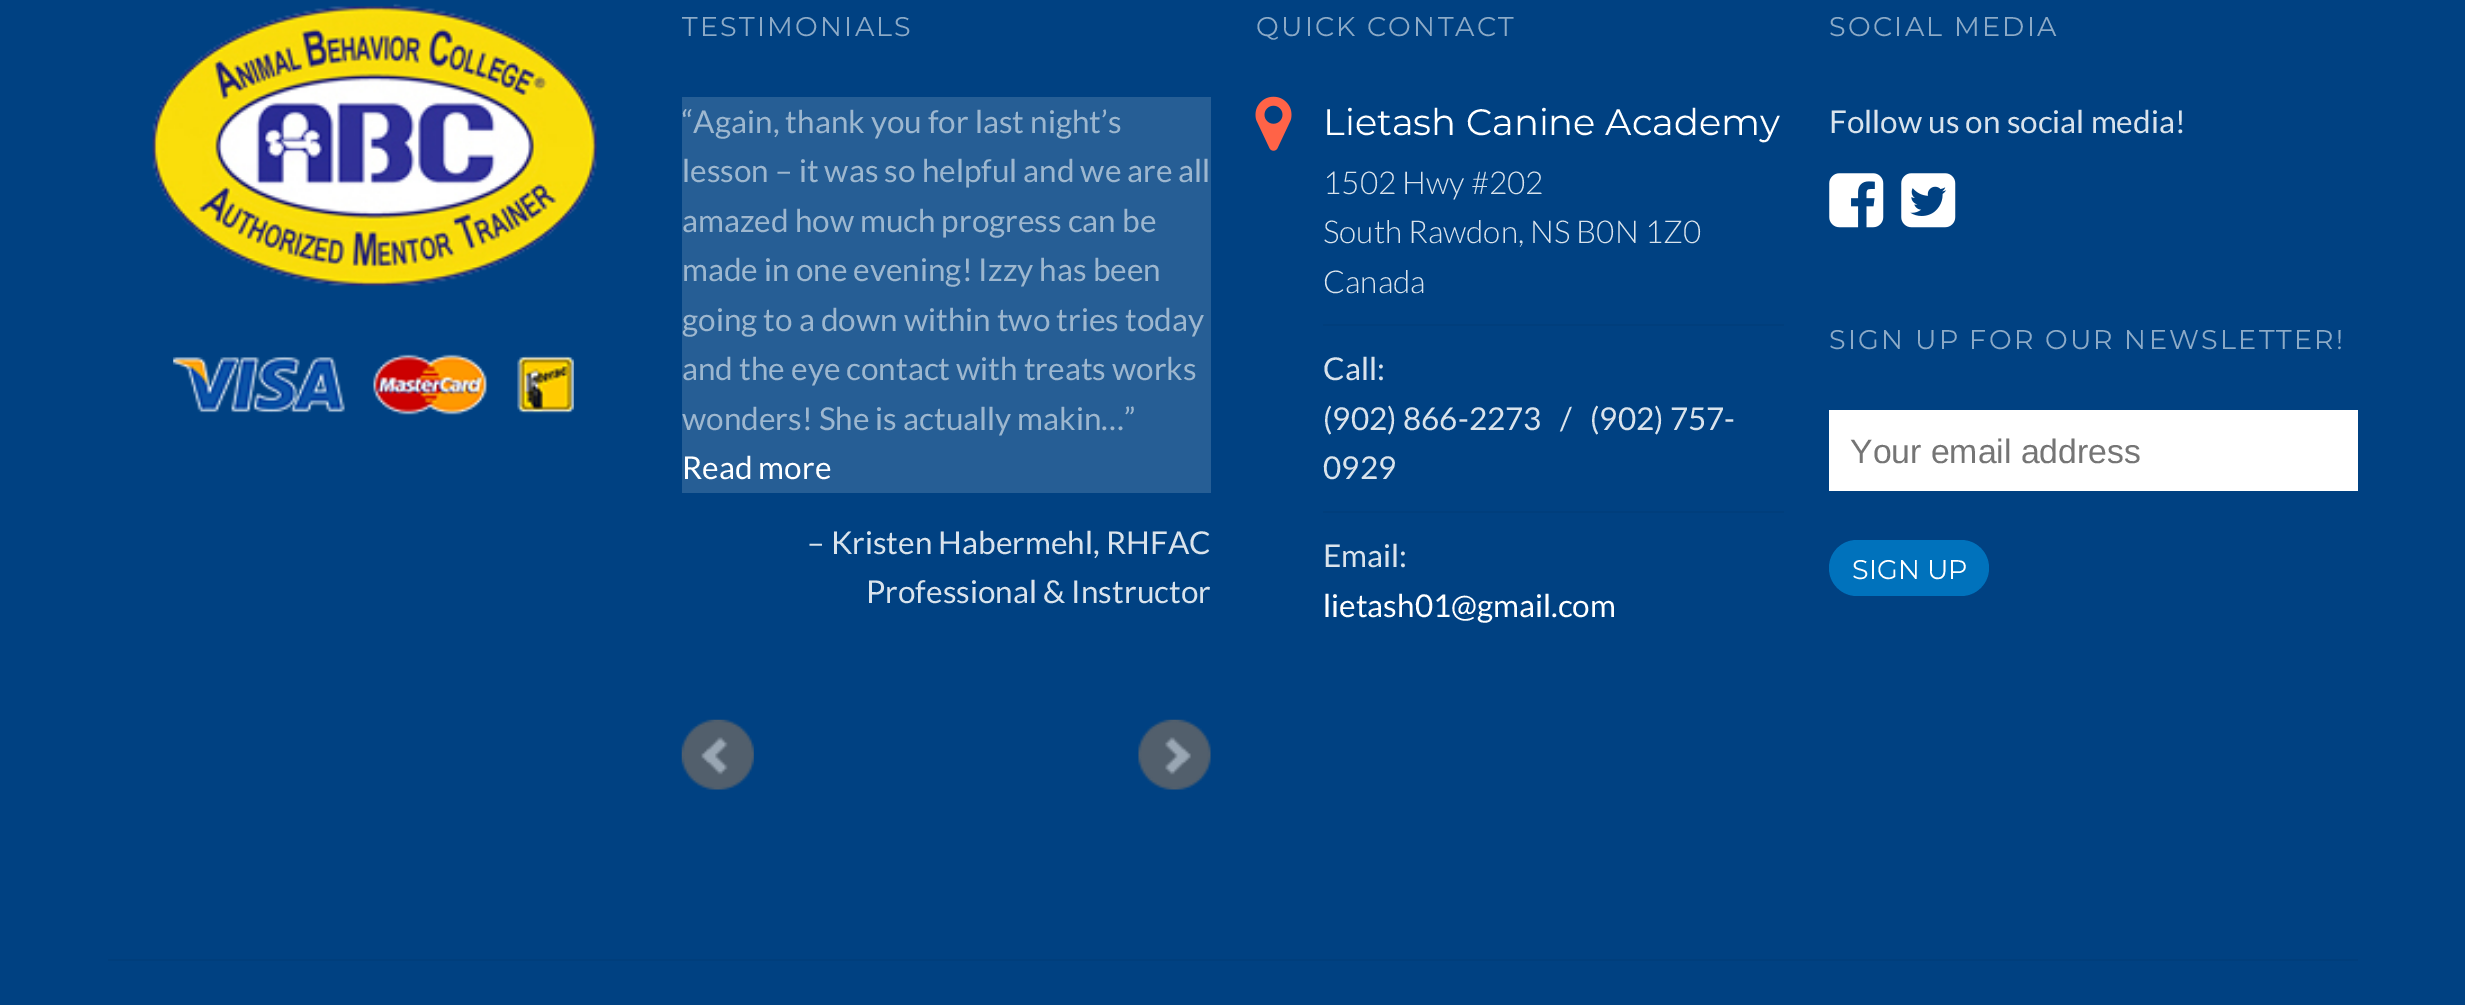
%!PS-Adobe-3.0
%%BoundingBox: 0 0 2465 1005
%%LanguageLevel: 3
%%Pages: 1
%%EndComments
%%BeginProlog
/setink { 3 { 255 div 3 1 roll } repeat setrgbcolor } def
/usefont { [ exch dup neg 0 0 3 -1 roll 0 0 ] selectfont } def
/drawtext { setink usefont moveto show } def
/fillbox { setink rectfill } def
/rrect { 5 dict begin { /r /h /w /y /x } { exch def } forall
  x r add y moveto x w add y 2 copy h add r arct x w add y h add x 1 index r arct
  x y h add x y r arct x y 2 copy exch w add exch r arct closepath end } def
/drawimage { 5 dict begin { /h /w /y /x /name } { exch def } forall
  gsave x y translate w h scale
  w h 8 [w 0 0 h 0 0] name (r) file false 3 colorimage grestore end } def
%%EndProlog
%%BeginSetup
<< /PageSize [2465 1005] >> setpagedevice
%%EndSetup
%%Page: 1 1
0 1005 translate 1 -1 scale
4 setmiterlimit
0 0 2465 1005 0 65 130 fillbox
(assets/img1.rgb) 152 3 445 283 drawimage
(assets/img2.rgb) 173 354 401 61 drawimage
/Montserrat-Regular 27 usefont
140 170 199 setink
682 36 moveto 2.25 0 (TESTIMONIALS) ashow
682 97 529 396 38 94 149 fillbox
(“Again, thank you for last night’s) 682 133 /Lato-Regular 31.5 157 183 207 drawtext
(lesson – it was so helpful and we are all) 682 182 /Lato-Regular 31.5 157 183 207 drawtext
(amazed how much progress can be) 682 232 /Lato-Regular 31.5 157 183 207 drawtext
(made in one evening! Izzy has been) 682 281 /Lato-Regular 31.5 157 183 207 drawtext
(going to a down within two tries today) 682 331 /Lato-Regular 31.5 157 183 207 drawtext
(and the eye contact with treats works) 682 380 /Lato-Regular 31.5 157 183 207 drawtext
(wonders! She is actually makin…”) 682 430 /Lato-Regular 31.5 157 183 207 drawtext
(Read more) 682 479 /Lato-Regular 31.5 255 255 255 drawtext
(– Kristen Habermehl, RHFAC) 807 554 /Lato-Regular 31.5 217 227 236 drawtext
(Professional & Instructor) 866 603 /Lato-Regular 31.5 217 227 236 drawtext
(assets/img3.rgb) 681 719 73 71 drawimage
(assets/img4.rgb) 1138 719 73 71 drawimage
/Montserrat-Regular 27 usefont
140 170 199 setink
1256 36 moveto 2.25 0 (QUICK CONTACT) ashow
(assets/img5.rgb) 1255 96 37 55 drawimage
(Lietash Canine Academy) 1323 135 /Montserrat-Regular 36.8 255 255 255 drawtext
(1502 Hwy #202) 1323 194 /Lato-Light 31.5 217 227 236 drawtext
(South Rawdon, NS B0N 1Z0) 1323 243 /Lato-Light 31.5 217 227 236 drawtext
(Canada) 1323 293 /Lato-Light 31.5 217 227 236 drawtext
1323 324 461 2 0 62 124 fillbox
(Call:) 1323 380 /Lato-Regular 31.5 217 227 236 drawtext
(\(902\) 866-2273   /   \(902\) 757-) 1323 430 /Lato-Regular 31.5 217 227 236 drawtext
(0929) 1323 479 /Lato-Regular 31.5 217 227 236 drawtext
1323 511 461 2 0 62 124 fillbox
(Email:) 1323 567 /Lato-Regular 31.5 217 227 236 drawtext
(lietash01@gmail.com) 1323 617 /Lato-Regular 31.5 255 255 255 drawtext
/Montserrat-Regular 27 usefont
140 170 199 setink
1829 36 moveto 2.25 0 (SOCIAL MEDIA) ashow
(Follow us on social media!) 1829 133 /Lato-Regular 31.5 217 227 236 drawtext
(assets/img6.rgb) 1829 173 55 55 drawimage
(assets/img7.rgb) 1901 173 55 55 drawimage
/Montserrat-Regular 27 usefont
140 170 199 setink
1829 349 moveto 2.25 0 (SIGN UP FOR OUR NEWSLETTER!) ashow
1829 410 529 81 255 255 255 fillbox
(Your email address) 1850 463 /LiberationSans-Regular 33.75 117 117 117 drawtext
0 114 188 setink
1829 540 160 56 28 rrect fill
(SIGN UP) 1852 579 /Montserrat-Regular 27 255 255 255 drawtext
108 959 2250 2 0 62 124 fillbox
showpage
%%EOF
